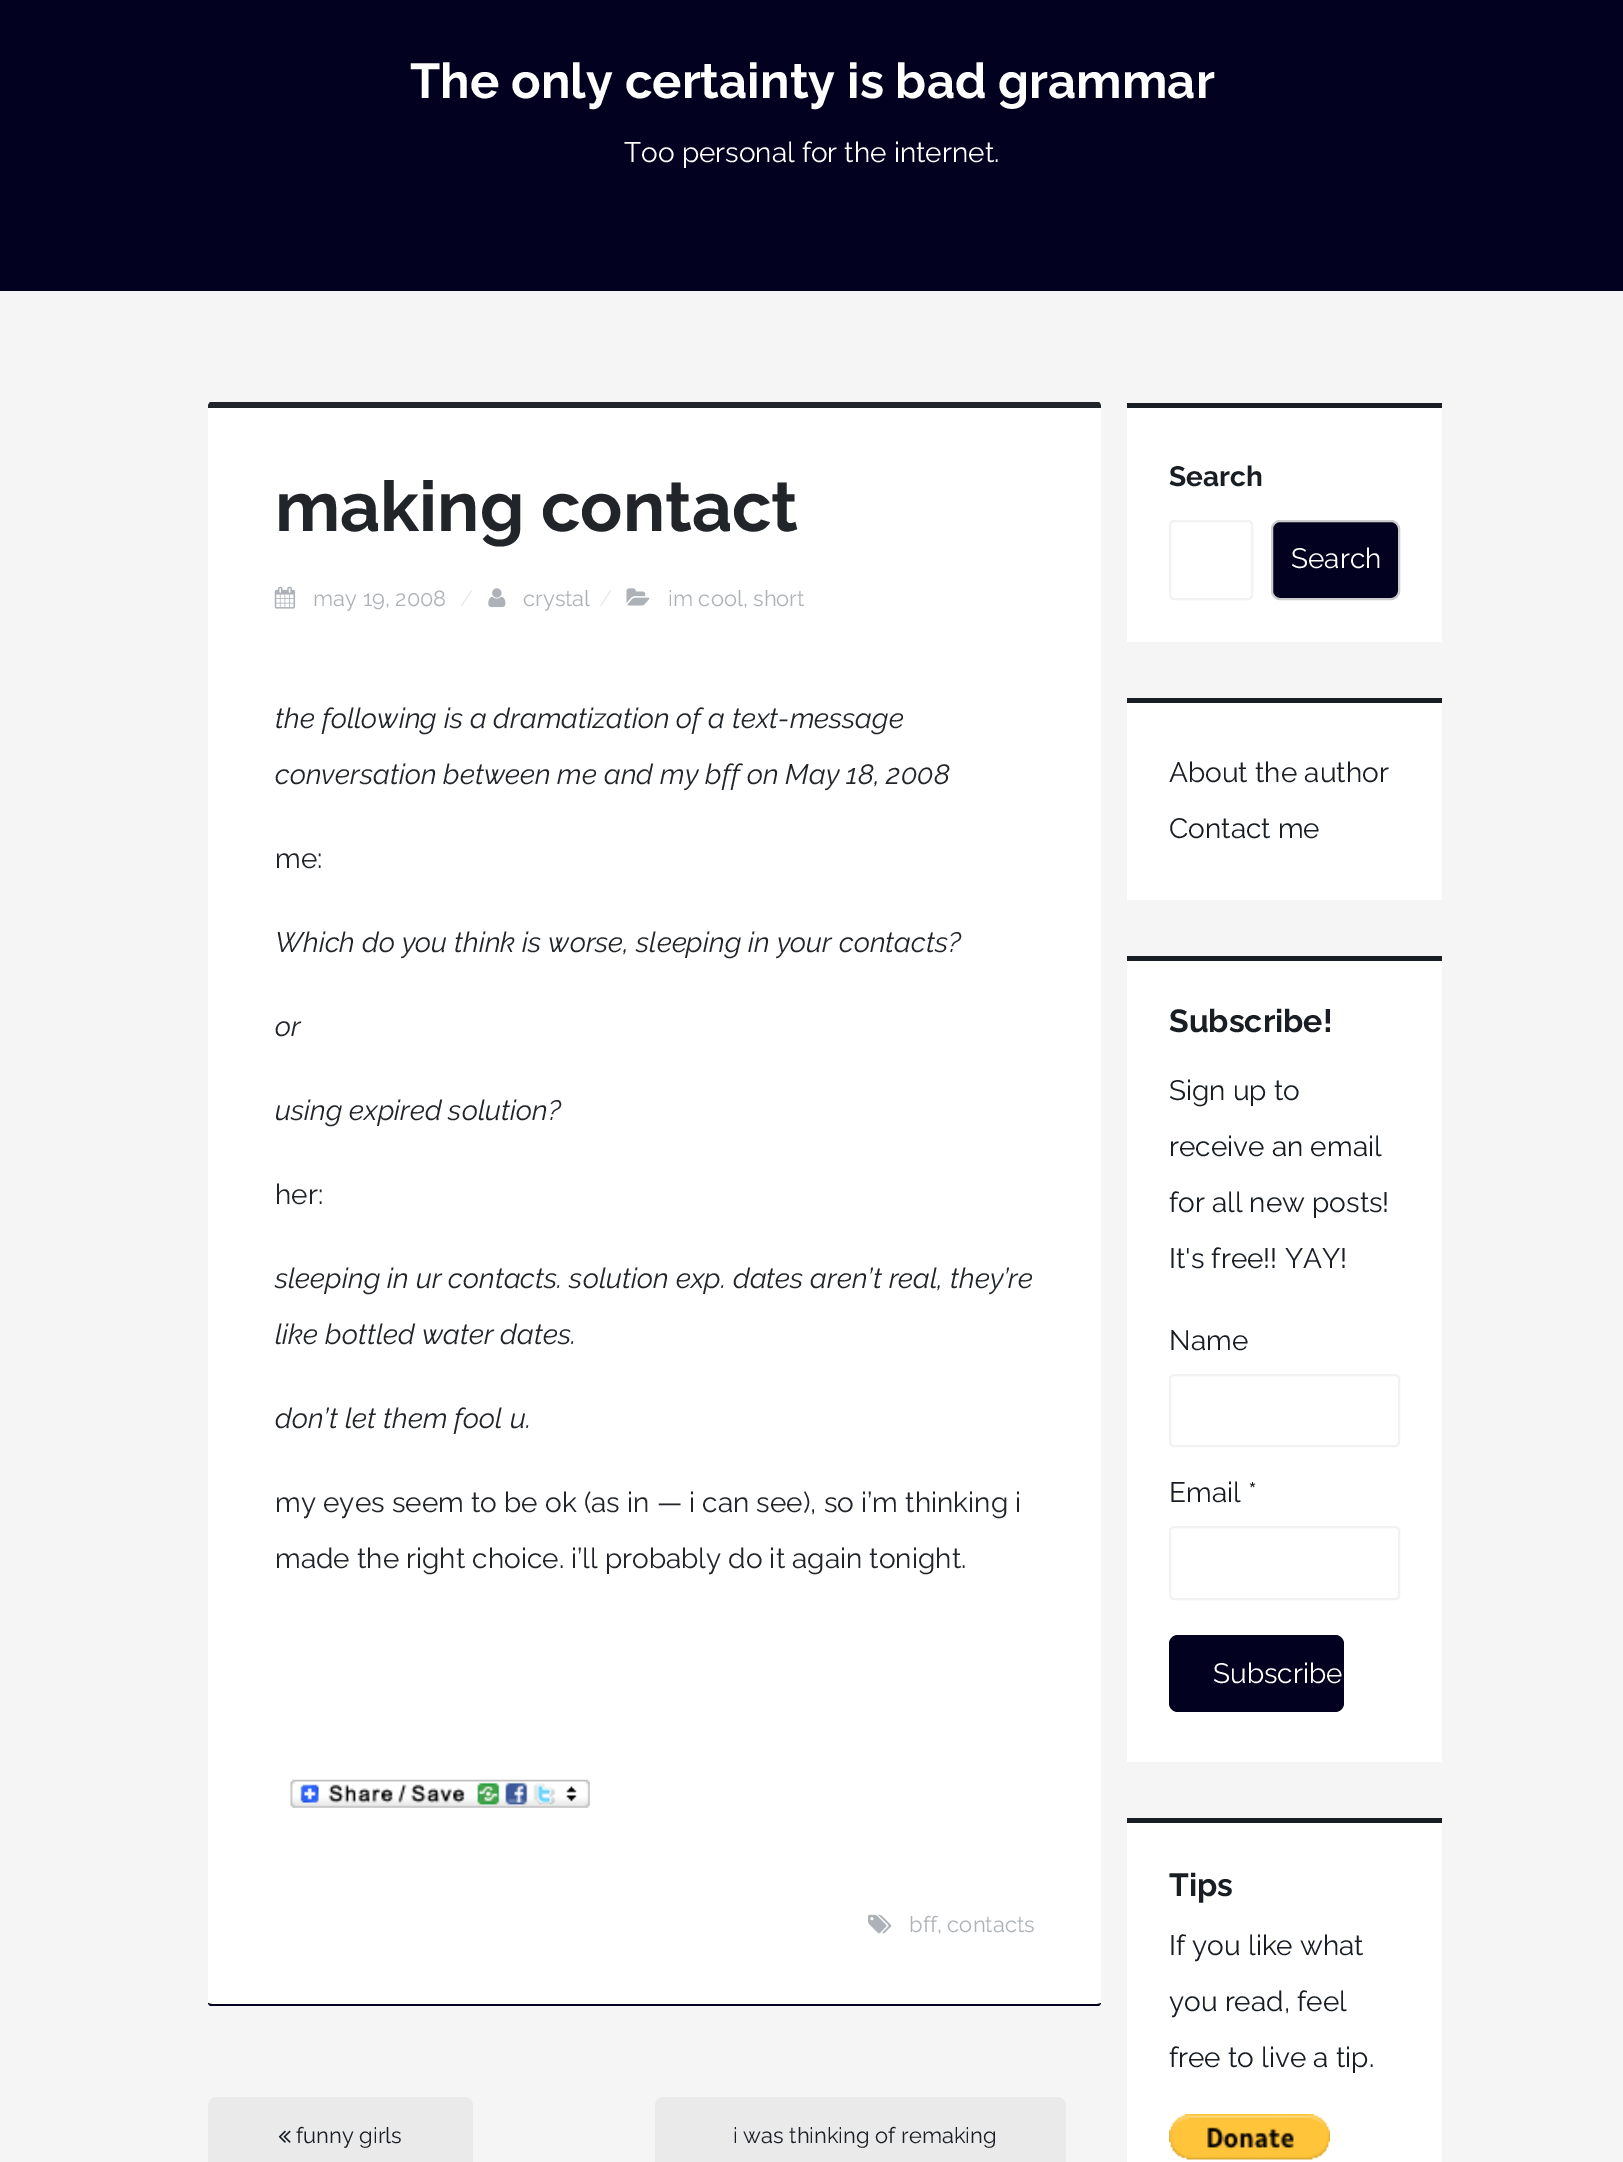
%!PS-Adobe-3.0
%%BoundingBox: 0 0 1623 2162
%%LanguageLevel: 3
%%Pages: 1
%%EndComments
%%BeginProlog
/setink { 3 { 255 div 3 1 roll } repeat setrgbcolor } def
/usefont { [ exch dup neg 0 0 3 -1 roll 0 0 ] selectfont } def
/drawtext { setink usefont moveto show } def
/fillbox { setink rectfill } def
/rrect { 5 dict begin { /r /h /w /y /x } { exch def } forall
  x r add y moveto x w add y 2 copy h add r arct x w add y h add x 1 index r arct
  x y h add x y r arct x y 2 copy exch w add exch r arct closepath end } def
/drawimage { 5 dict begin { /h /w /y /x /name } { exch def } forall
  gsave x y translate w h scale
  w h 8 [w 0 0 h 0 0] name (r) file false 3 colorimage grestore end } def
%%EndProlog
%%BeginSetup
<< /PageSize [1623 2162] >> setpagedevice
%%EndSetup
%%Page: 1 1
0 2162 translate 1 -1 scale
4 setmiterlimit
0 0 1623 2162 245 245 245 fillbox
0 0 1623 291 3 1 32 fillbox
(The only certainty is bad grammar) 410 98 /Raleway-Bold 49 255 255 255 drawtext
(Too personal for the internet.) 624 162 /Raleway-Regular 28 255 255 255 drawtext
208 403 893 1603 4 rrect fill
33 37 41 setink
208 405 moveto 210 402 lineto 1099 402 lineto 1101 404 1101 406 1101 408 curveto 208 408 lineto closepath fill
3 1 32 setink
1101 2003 moveto 1101 2004 1100 2005 1099 2006 curveto 210 2006 lineto 209 2005 208 2004 208 2003 curveto 209 2003 210 2004 212 2004 curveto 1097 2004 lineto 1099 2004 1100 2003 1101 2003 curveto closepath fill
(making contact) 275 531 /Raleway-Bold 70 33 37 41 drawtext
(assets/img1.rgb) 274 586 22 23 drawimage
(may 19, 2008) 313 606 /Raleway-Regular 21.9 173 178 184 drawtext
(/) 460 606 /Raleway-Regular 21.9 231 233 236 drawtext
(assets/img2.rgb) 488 588 18 20 drawimage
(crystal) 523 606 /Raleway-Regular 21.9 173 178 184 drawtext
(/) 599 606 /Raleway-Regular 21.9 231 233 236 drawtext
(assets/img3.rgb) 626 588 24 18 drawimage
(im cool, short) 668 606 /Raleway-Regular 21.9 173 178 184 drawtext
(the following is a dramatization of a text-message) 275 728 /Raleway-Italic 28 33 37 41 drawtext
(conversation between me and my bff on May 18, 2008) 275 784 /Raleway-Italic 28 33 37 41 drawtext
(me:) 275 868 /Raleway-Regular 28 33 37 41 drawtext
(Which do you think is worse, sleeping in your contacts?) 275 952 /Raleway-Italic 28 33 37 41 drawtext
(or) 275 1036 /Raleway-Italic 28 33 37 41 drawtext
(using expired solution?) 275 1120 /Raleway-Italic 28 33 37 41 drawtext
(her:) 275 1204 /Raleway-Regular 28 33 37 41 drawtext
(sleeping in ur contacts. solution exp. dates aren’t real, they’re) 275 1288 /Raleway-Italic 28 33 37 41 drawtext
(like bottled water dates.) 275 1344 /Raleway-Italic 28 33 37 41 drawtext
(don’t let them fool u.) 275 1428 /Raleway-Italic 28 33 37 41 drawtext
(my eyes seem to be ok \(as in — i can see\), so i’m thinking i) 275 1512 /Raleway-Regular 28 33 37 41 drawtext
(made the right choice. i’ll probably do it again tonight.) 275 1568 /Raleway-Regular 28 33 37 41 drawtext
(assets/img4.rgb) 290 1779 300 29 drawimage
(assets/img5.rgb) 868 1914 24 20 drawimage
(bff, contacts) 909 1932 /Raleway-Regular 21.9 173 178 184 drawtext
234 234 234 setink
208 2097 265 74 9 rrect fill
(assets/img6.rgb) 278 2130 13 13 drawimage
(funny girls) 296 2143 /Raleway-Regular 21.9 25 30 36 drawtext
234 234 234 setink
655 2097 411 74 9 rrect fill
(i was thinking of remaking) 733 2143 /Raleway-Regular 21.9 25 30 36 drawtext
1127 408 315 234 255 255 255 fillbox
1127 403 315 5 25 30 36 fillbox
(Search) 1169 486 /Raleway-Bold 28 25 30 36 drawtext
241 242 244 setink
2 setlinewidth
1170 521 82 78 4 rrect stroke
3 1 32 setink
1272 521 127 78 8 rrect gsave fill grestore
204 204 204 setink
stroke
(Search) 1291 568 /Raleway-Regular 28 255 255 255 drawtext
1127 703 315 197 255 255 255 fillbox
1127 698 315 5 25 30 36 fillbox
(About the author) 1169 782 /Raleway-Regular 28 25 30 36 drawtext
(Contact me) 1169 838 /Raleway-Regular 28 25 30 36 drawtext
1127 961 315 801 255 255 255 fillbox
1127 956 315 5 25 30 36 fillbox
(Subscribe!) 1169 1032 /Raleway-Bold 32 25 30 36 drawtext
(Sign up to) 1169 1100 /Raleway-Regular 28 25 30 36 drawtext
(receive an email) 1169 1156 /Raleway-Regular 28 25 30 36 drawtext
(for all new posts!) 1169 1212 /Raleway-Regular 28 25 30 36 drawtext
(It's free!! YAY!) 1169 1268 /Raleway-Regular 28 25 30 36 drawtext
(Name) 1169 1350 /Raleway-Regular 28 25 30 36 drawtext
241 242 244 setink
1170 1375 229 71 4 rrect stroke
(Email *) 1169 1502 /Raleway-Regular 28 25 30 36 drawtext
241 242 244 setink
1170 1527 229 72 4 rrect stroke
3 1 32 setink
1169 1635 175 77 9 rrect fill
(Subscribe) 1213 1683 /Raleway-Regular 28 255 255 255 drawtext
1127 1823 315 339 255 255 255 fillbox
1127 1818 315 5 25 30 36 fillbox
(Tips) 1169 1896 /Raleway-Bold 32 25 30 36 drawtext
(If you like what) 1169 1955 /Raleway-Regular 28 25 30 36 drawtext
(you read, feel) 1169 2011 /Raleway-Regular 28 25 30 36 drawtext
(free to live a tip.) 1169 2067 /Raleway-Regular 28 25 30 36 drawtext
(assets/img7.rgb) 1169 2114 161 46 drawimage
showpage
%%EOF
